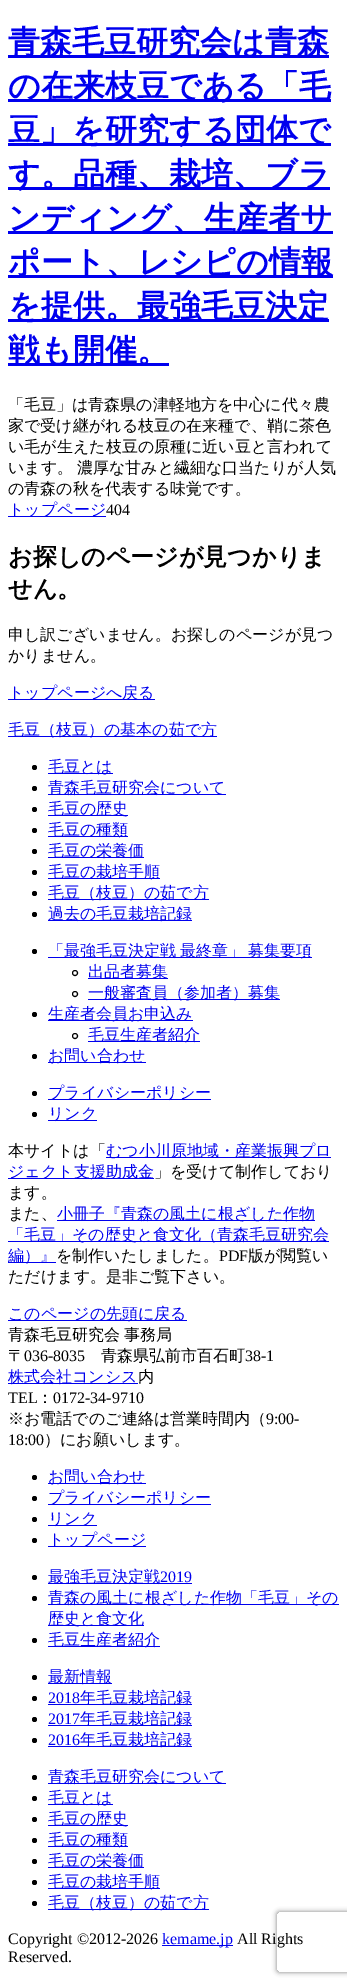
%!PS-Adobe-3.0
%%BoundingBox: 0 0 347 1986
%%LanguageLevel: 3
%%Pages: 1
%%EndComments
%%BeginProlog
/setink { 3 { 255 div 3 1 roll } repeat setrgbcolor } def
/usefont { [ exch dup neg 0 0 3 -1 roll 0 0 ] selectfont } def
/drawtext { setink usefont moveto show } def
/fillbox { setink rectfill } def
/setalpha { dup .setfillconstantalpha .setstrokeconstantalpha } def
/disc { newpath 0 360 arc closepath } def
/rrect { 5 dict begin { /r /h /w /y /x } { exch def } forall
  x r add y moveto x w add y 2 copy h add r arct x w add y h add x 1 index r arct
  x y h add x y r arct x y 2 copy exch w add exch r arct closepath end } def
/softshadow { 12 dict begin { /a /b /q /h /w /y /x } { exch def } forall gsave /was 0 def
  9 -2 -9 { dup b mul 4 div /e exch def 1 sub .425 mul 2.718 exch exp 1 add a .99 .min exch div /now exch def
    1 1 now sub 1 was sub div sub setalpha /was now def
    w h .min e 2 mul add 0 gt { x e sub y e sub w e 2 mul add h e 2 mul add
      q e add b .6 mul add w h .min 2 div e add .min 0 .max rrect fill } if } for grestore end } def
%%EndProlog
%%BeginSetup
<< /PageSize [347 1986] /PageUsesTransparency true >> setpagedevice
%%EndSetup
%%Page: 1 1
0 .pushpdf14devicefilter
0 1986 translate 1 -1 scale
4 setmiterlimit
0 0 347 1986 255 255 255 fillbox
8 55 321 3 0 0 238 fillbox
(青森毛豆研究会は青森) 8 53 /WenQuanYiZenHei-Bold 32 0 0 238 drawtext
8 99 323 3 0 0 238 fillbox
(の在来枝豆である「毛) 8 97 /WenQuanYiZenHei-Bold 32 0 0 238 drawtext
8 143 323 3 0 0 238 fillbox
(豆」を研究する団体で) 8 141 /WenQuanYiZenHei-Bold 32 0 0 238 drawtext
8 187 322 3 0 0 238 fillbox
(す。品種、栽培、ブラ) 8 185 /WenQuanYiZenHei-Bold 32 0 0 238 drawtext
8 231 325 3 0 0 238 fillbox
(ンディング、生産者サ) 8 229 /WenQuanYiZenHei-Bold 32 0 0 238 drawtext
8 275 325 3 0 0 238 fillbox
(ポート、レシピの情報) 8 273 /WenQuanYiZenHei-Bold 32 0 0 238 drawtext
8 319 321 3 0 0 238 fillbox
(を提供。最強毛豆決定) 8 317 /WenQuanYiZenHei-Bold 32 0 0 238 drawtext
8 363 161 3 0 0 238 fillbox
(戦も開催。) 8 361 /WenQuanYiZenHei-Bold 32 0 0 238 drawtext
(「毛豆」は青森県の津軽地方を中心に代々農) 8 410 /WenQuanYiZenHei-Medium 16 0 0 0 drawtext
(家で受け継がれる枝豆の在来種で、鞘に茶色) 8 431 /WenQuanYiZenHei-Medium 16 0 0 0 drawtext
(い毛が生えた枝豆の原種に近い豆と言われて) 8 452 /WenQuanYiZenHei-Medium 16 0 0 0 drawtext
8 473 moveto -1 0 32 (います。 濃厚な甘みと繊細な口当たりが人気) widthshow
(の青森の秋を代表する味覚です。) 8 494 /WenQuanYiZenHei-Medium 16 0 0 0 drawtext
8 516 98 1 0 0 238 fillbox
(トップページ) 8 515 /WenQuanYiZenHei-Medium 16 0 0 238 drawtext
(404) 106 515 /LiberationSerif-Regular 16 0 0 0 drawtext
(お探しのページが見つかりま) 8 565 /WenQuanYiZenHei-Bold 24 0 0 0 drawtext
(せん。) 8 597 /WenQuanYiZenHei-Bold 24 0 0 0 drawtext
(申し訳ございません。お探しのページが見つ) 8 640 /WenQuanYiZenHei-Medium 16 0 0 0 drawtext
(かりません。) 8 661 /WenQuanYiZenHei-Medium 16 0 0 0 drawtext
8 699 147 1 0 0 238 fillbox
(トップページへ戻る) 8 698 /WenQuanYiZenHei-Medium 16 0 0 238 drawtext
8 736 209 1 0 0 238 fillbox
(毛豆（枝豆）の基本の茹で方) 8 735 /WenQuanYiZenHei-Medium 16 0 0 238 drawtext
0 0 0 setink
34.5 767.5 2.5 disc fill
48 773 65 1 0 0 238 fillbox
(毛豆とは) 48 772 /WenQuanYiZenHei-Medium 16 0 0 238 drawtext
0 0 0 setink
34.5 788.5 2.5 disc fill
48 794 178 1 0 0 238 fillbox
(青森毛豆研究会について) 48 793 /WenQuanYiZenHei-Medium 16 0 0 238 drawtext
0 0 0 setink
34.5 809.5 2.5 disc fill
48 815 80 1 0 0 238 fillbox
(毛豆の歴史) 48 814 /WenQuanYiZenHei-Medium 16 0 0 238 drawtext
0 0 0 setink
34.5 830.5 2.5 disc fill
48 836 80 1 0 0 238 fillbox
(毛豆の種類) 48 835 /WenQuanYiZenHei-Medium 16 0 0 238 drawtext
0 0 0 setink
34.5 851.5 2.5 disc fill
48 857 96 1 0 0 238 fillbox
(毛豆の栄養価) 48 856 /WenQuanYiZenHei-Medium 16 0 0 238 drawtext
0 0 0 setink
34.5 872.5 2.5 disc fill
48 878 112 1 0 0 238 fillbox
(毛豆の栽培手順) 48 877 /WenQuanYiZenHei-Medium 16 0 0 238 drawtext
0 0 0 setink
34.5 893.5 2.5 disc fill
48 899 161 1 0 0 238 fillbox
(毛豆（枝豆）の茹で方) 48 898 /WenQuanYiZenHei-Medium 16 0 0 238 drawtext
0 0 0 setink
34.5 914.5 2.5 disc fill
48 920 144 1 0 0 238 fillbox
(過去の毛豆栽培記録) 48 919 /WenQuanYiZenHei-Medium 16 0 0 238 drawtext
0 0 0 setink
34.5 951.5 2.5 disc fill
48 957 264 1 0 0 238 fillbox
48 956 moveto -1 0 32 (「最強毛豆決定戦 最終章」 募集要項) widthshow
0 0 0 setink
75 973 2.5 disc stroke
88 978 80 1 0 0 238 fillbox
(出品者募集) 88 977 /WenQuanYiZenHei-Medium 16 0 0 238 drawtext
0 0 0 setink
75 994 2.5 disc stroke
88 999 192 1 0 0 238 fillbox
(一般審査員（参加者）募集) 88 998 /WenQuanYiZenHei-Medium 16 0 0 238 drawtext
0 0 0 setink
34.5 1014.5 2.5 disc fill
48 1020 145 1 0 0 238 fillbox
(生産者会員お申込み) 48 1019 /WenQuanYiZenHei-Medium 16 0 0 238 drawtext
0 0 0 setink
75 1036 2.5 disc stroke
88 1041 112 1 0 0 238 fillbox
(毛豆生産者紹介) 88 1040 /WenQuanYiZenHei-Medium 16 0 0 238 drawtext
0 0 0 setink
34.5 1056.5 2.5 disc fill
48 1062 98 1 0 0 238 fillbox
(お問い合わせ) 48 1061 /WenQuanYiZenHei-Medium 16 0 0 238 drawtext
0 0 0 setink
34.5 1093.5 2.5 disc fill
48 1099 163 1 0 0 238 fillbox
(プライバシーポリシー) 48 1098 /WenQuanYiZenHei-Medium 16 0 0 238 drawtext
0 0 0 setink
34.5 1114.5 2.5 disc fill
48 1120 49 1 0 0 238 fillbox
(リンク) 48 1119 /WenQuanYiZenHei-Medium 16 0 0 238 drawtext
(本サイトは「) 8 1156 /WenQuanYiZenHei-Medium 16 0 0 0 drawtext
106 1157 225 1 0 0 238 fillbox
(むつ小川原地域・産業振興プロ) 106 1156 /WenQuanYiZenHei-Medium 16 0 0 238 drawtext
8 1178 146 1 0 0 238 fillbox
(ジェクト支援助成金) 8 1177 /WenQuanYiZenHei-Medium 16 0 0 238 drawtext
(」を受けて制作しており) 154 1177 /WenQuanYiZenHei-Medium 16 0 0 0 drawtext
(ます。) 8 1198 /WenQuanYiZenHei-Medium 16 0 0 0 drawtext
(また、) 8 1219 /WenQuanYiZenHei-Medium 16 0 0 0 drawtext
57 1220 258 1 0 0 238 fillbox
(小冊子『青森の風土に根ざした作物) 57 1219 /WenQuanYiZenHei-Medium 16 0 0 238 drawtext
8 1241 321 1 0 0 238 fillbox
(「毛豆」その歴史と食文化（青森毛豆研究会) 8 1240 /WenQuanYiZenHei-Medium 16 0 0 238 drawtext
8 1262 48 1 0 0 238 fillbox
(編）』) 8 1261 /WenQuanYiZenHei-Medium 16 0 0 238 drawtext
(を制作いたしました。) 56 1261 /WenQuanYiZenHei-Medium 16 0 0 0 drawtext
(PDF) 219 1261 /LiberationSerif-Regular 16 0 0 0 drawtext
(版が閲覧い) 248 1261 /WenQuanYiZenHei-Medium 16 0 0 0 drawtext
(ただけます。是非ご覧下さい。) 8 1282 /WenQuanYiZenHei-Medium 16 0 0 0 drawtext
8 1320 179 1 0 0 238 fillbox
(このページの先頭に戻る) 8 1319 /WenQuanYiZenHei-Medium 16 0 0 238 drawtext
0 0 0 setink
8 1340 moveto -1 0 32 (青森毛豆研究会 事務局) widthshow
(〒) 8 1361 /WenQuanYiZenHei-Medium 16 0 0 0 drawtext
(036-8035) 24 1361 /LiberationSerif-Regular 16 0 0 0 drawtext
(青森県弘前市百石町) 101 1361 /WenQuanYiZenHei-Medium 16 0 0 0 drawtext
(38-1) 245 1361 /LiberationSerif-Regular 16 0 0 0 drawtext
8 1383 130 1 0 0 238 fillbox
(株式会社コンシス) 8 1382 /WenQuanYiZenHei-Medium 16 0 0 238 drawtext
(内) 138 1382 /WenQuanYiZenHei-Medium 16 0 0 0 drawtext
(TEL) 8 1403 /LiberationSerif-Regular 16 0 0 0 drawtext
(：) 37 1403 /WenQuanYiZenHei-Medium 16 0 0 0 drawtext
(0172-34-9710) 53 1403 /LiberationSerif-Regular 16 0 0 0 drawtext
(※お電話でのご連絡は営業時間内（) 8 1424 /WenQuanYiZenHei-Medium 16 0 0 0 drawtext
(9:00-) 266 1424 /LiberationSerif-Regular 16 0 0 0 drawtext
(18:00) 8 1445 /LiberationSerif-Regular 16 0 0 0 drawtext
(）にお願いします。) 44 1445 /WenQuanYiZenHei-Medium 16 0 0 0 drawtext
34.5 1477.5 2.5 disc fill
48 1483 98 1 0 0 238 fillbox
(お問い合わせ) 48 1482 /WenQuanYiZenHei-Medium 16 0 0 238 drawtext
0 0 0 setink
34.5 1498.5 2.5 disc fill
48 1504 163 1 0 0 238 fillbox
(プライバシーポリシー) 48 1503 /WenQuanYiZenHei-Medium 16 0 0 238 drawtext
0 0 0 setink
34.5 1519.5 2.5 disc fill
48 1525 49 1 0 0 238 fillbox
(リンク) 48 1524 /WenQuanYiZenHei-Medium 16 0 0 238 drawtext
0 0 0 setink
34.5 1540.5 2.5 disc fill
48 1546 98 1 0 0 238 fillbox
(トップページ) 48 1545 /WenQuanYiZenHei-Medium 16 0 0 238 drawtext
0 0 0 setink
34.5 1577.5 2.5 disc fill
48 1583 144 1 0 0 238 fillbox
(最強毛豆決定戦) 48 1582 /WenQuanYiZenHei-Medium 16 0 0 238 drawtext
(2019) 160 1582 /LiberationSerif-Regular 16 0 0 238 drawtext
0 0 0 setink
34.5 1598.5 2.5 disc fill
48 1604 291 1 0 0 238 fillbox
(青森の風土に根ざした作物「毛豆」その) 48 1603 /WenQuanYiZenHei-Medium 16 0 0 238 drawtext
48 1625 96 1 0 0 238 fillbox
(歴史と食文化) 48 1624 /WenQuanYiZenHei-Medium 16 0 0 238 drawtext
0 0 0 setink
34.5 1640.5 2.5 disc fill
48 1646 112 1 0 0 238 fillbox
(毛豆生産者紹介) 48 1645 /WenQuanYiZenHei-Medium 16 0 0 238 drawtext
0 0 0 setink
34.5 1677.5 2.5 disc fill
48 1683 64 1 0 0 238 fillbox
(最新情報) 48 1682 /WenQuanYiZenHei-Medium 16 0 0 238 drawtext
0 0 0 setink
34.5 1698.5 2.5 disc fill
(2018) 48 1703 /LiberationSerif-Regular 16 0 0 238 drawtext
48 1704 144 1 0 0 238 fillbox
(年毛豆栽培記録) 80 1703 /WenQuanYiZenHei-Medium 16 0 0 238 drawtext
0 0 0 setink
34.5 1719.5 2.5 disc fill
(2017) 48 1724 /LiberationSerif-Regular 16 0 0 238 drawtext
48 1725 144 1 0 0 238 fillbox
(年毛豆栽培記録) 80 1724 /WenQuanYiZenHei-Medium 16 0 0 238 drawtext
0 0 0 setink
34.5 1740.5 2.5 disc fill
(2016) 48 1745 /LiberationSerif-Regular 16 0 0 238 drawtext
48 1746 144 1 0 0 238 fillbox
(年毛豆栽培記録) 80 1745 /WenQuanYiZenHei-Medium 16 0 0 238 drawtext
0 0 0 setink
34.5 1777.5 2.5 disc fill
48 1783 178 1 0 0 238 fillbox
(青森毛豆研究会について) 48 1782 /WenQuanYiZenHei-Medium 16 0 0 238 drawtext
0 0 0 setink
34.5 1798.5 2.5 disc fill
48 1804 65 1 0 0 238 fillbox
(毛豆とは) 48 1803 /WenQuanYiZenHei-Medium 16 0 0 238 drawtext
0 0 0 setink
34.5 1819.5 2.5 disc fill
48 1825 80 1 0 0 238 fillbox
(毛豆の歴史) 48 1824 /WenQuanYiZenHei-Medium 16 0 0 238 drawtext
0 0 0 setink
34.5 1840.5 2.5 disc fill
48 1846 80 1 0 0 238 fillbox
(毛豆の種類) 48 1845 /WenQuanYiZenHei-Medium 16 0 0 238 drawtext
0 0 0 setink
34.5 1861.5 2.5 disc fill
48 1867 96 1 0 0 238 fillbox
(毛豆の栄養価) 48 1866 /WenQuanYiZenHei-Medium 16 0 0 238 drawtext
0 0 0 setink
34.5 1882.5 2.5 disc fill
48 1888 112 1 0 0 238 fillbox
(毛豆の栽培手順) 48 1887 /WenQuanYiZenHei-Medium 16 0 0 238 drawtext
0 0 0 setink
34.5 1903.5 2.5 disc fill
48 1909 161 1 0 0 238 fillbox
(毛豆（枝豆）の茹で方) 48 1908 /WenQuanYiZenHei-Medium 16 0 0 238 drawtext
(Copyright ©2012-2026) 8 1944 /LiberationSerif-Regular 16 0 0 0 drawtext
162 1945 71 1 0 0 238 fillbox
(kemame.jp) 162 1944 /LiberationSerif-Regular 16 0 0 238 drawtext
(All Rights) 237 1944 /LiberationSerif-Regular 16 0 0 0 drawtext
(Reserved.) 8 1962 /LiberationSerif-Regular 16 0 0 0 drawtext
gsave
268 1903 moveto 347 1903 lineto 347 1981 lineto 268 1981 lineto closepath 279 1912 moveto 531 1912 lineto 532 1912 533 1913 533 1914 curveto 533 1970 lineto 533 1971 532 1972 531 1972 curveto 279 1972 lineto 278 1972 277 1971 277 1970 curveto 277 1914 lineto 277 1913 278 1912 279 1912 curveto closepath eoclip newpath
128 128 128 setink
277 1912 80 60 2 2.5 1 softshadow
grestore
.poppdf14devicefilter showpage
%%EOF
